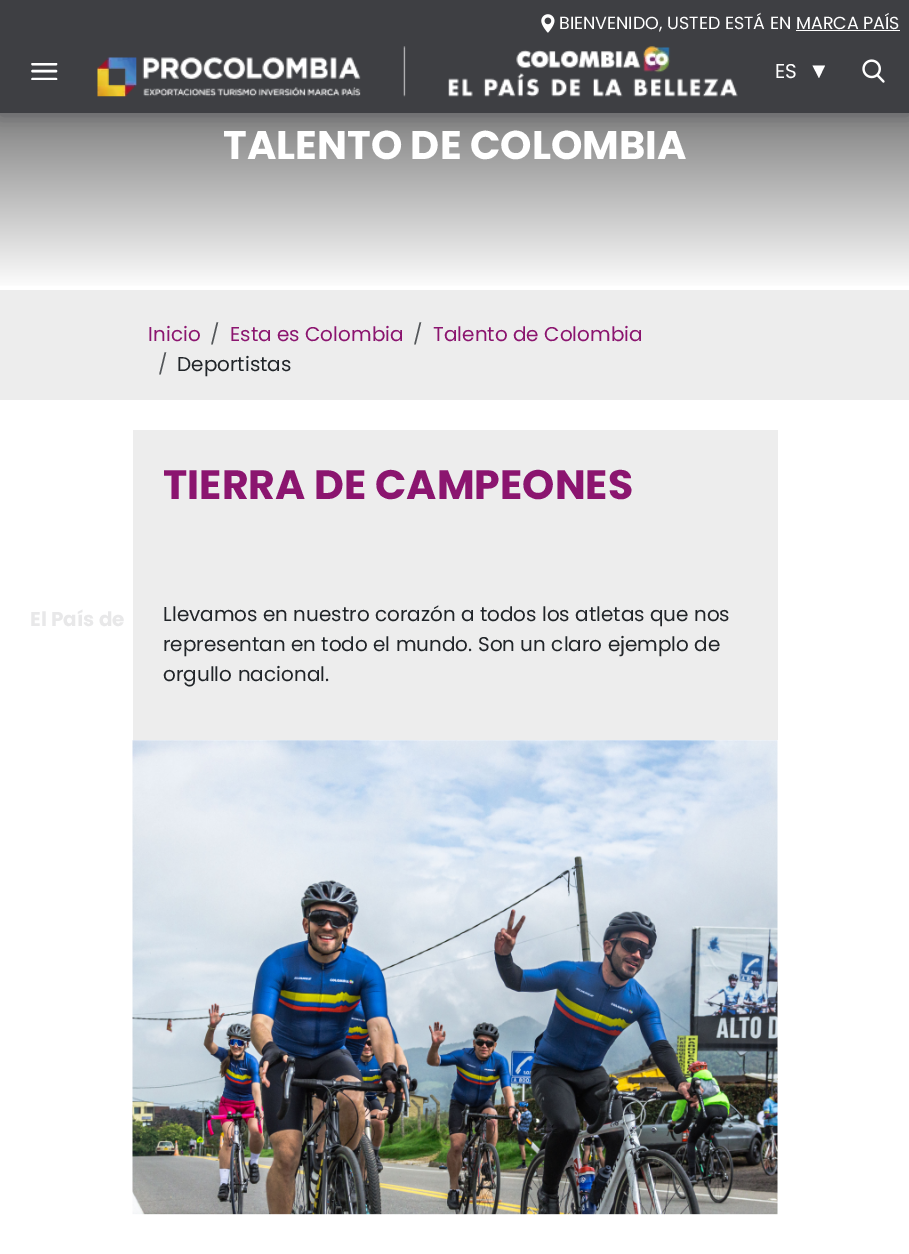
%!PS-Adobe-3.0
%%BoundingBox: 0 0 909 1254
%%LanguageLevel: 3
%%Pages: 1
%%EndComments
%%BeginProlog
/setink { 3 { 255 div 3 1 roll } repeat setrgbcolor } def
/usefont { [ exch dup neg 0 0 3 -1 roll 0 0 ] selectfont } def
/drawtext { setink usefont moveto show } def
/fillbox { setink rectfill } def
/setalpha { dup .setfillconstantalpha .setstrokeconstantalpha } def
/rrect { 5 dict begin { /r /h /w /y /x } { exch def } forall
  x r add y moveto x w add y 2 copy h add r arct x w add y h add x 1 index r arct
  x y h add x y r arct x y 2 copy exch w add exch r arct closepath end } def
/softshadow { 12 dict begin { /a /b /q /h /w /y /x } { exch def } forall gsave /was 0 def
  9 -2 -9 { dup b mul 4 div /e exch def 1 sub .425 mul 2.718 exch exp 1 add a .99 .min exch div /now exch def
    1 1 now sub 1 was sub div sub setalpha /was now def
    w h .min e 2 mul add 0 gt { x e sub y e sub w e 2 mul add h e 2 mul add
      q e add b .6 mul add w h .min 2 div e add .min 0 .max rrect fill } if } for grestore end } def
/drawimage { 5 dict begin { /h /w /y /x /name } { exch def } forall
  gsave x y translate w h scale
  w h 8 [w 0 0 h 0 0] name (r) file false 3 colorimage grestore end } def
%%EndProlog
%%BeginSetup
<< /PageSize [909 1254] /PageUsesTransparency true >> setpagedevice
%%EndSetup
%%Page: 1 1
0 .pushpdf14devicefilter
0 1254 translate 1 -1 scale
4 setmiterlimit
0 0 909 1254 255 255 255 fillbox
gsave 0 113 moveto 909 113 lineto 909 286 lineto 0 286 lineto closepath clip newpath
<< /ShadingType 2 /ColorSpace /DeviceRGB /Coords [455 0 455 290] /Extend [true true] /Function << /FunctionType 2 /Domain [0 1] /C0 [0.2 0.2 0.2] /C1 [1 1 1] /N 1 >> >> shfill grestore
14 18 27 setink
0 3 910 112 0 10 0.3 softshadow
0 0 909 113 62 63 67 fillbox
(assets/img1.rgb) 541 14 14 19 drawimage
(BIENVENIDO, USTED ESTÁ EN MARCA PAÍS) 559 29 /Poppins-Regular 17.5 255 255 255 drawtext
796 30 104 1 255 255 255 fillbox
gsave
31 63 27 17 rectclip
2.5 setlinewidth
1 setlinecap
32.5 64 moveto 56 64 lineto 32.5 71 moveto 56 71 lineto 32.5 79 moveto 56 79 lineto stroke
grestore
(assets/img2.rgb) 97 46 641 51 drawimage
(ES) 775 78 /Poppins-Regular 20 255 255 255 drawtext
812.5 65.5 moveto 825 65.5 lineto 819 78 lineto closepath fill
(assets/img3.rgb) 862 59 23 24 drawimage
(El País de) 30 626 /Poppins-Bold 20 232 232 233 drawtext
(TALENTO DE COLOMBIA) 223 159 /Poppins-Bold 40 255 255 255 drawtext
0 290 909 110 237 237 237 fillbox
(Inicio) 148 341 /Poppins-Regular 20 139 21 111 drawtext
(/) 210 341 /Poppins-Regular 20 84 87 90 drawtext
(Esta es Colombia) 230 341 /Poppins-Regular 20 139 21 111 drawtext
(/) 413 341 /Poppins-Regular 20 84 87 90 drawtext
(Talento de Colombia) 433 341 /Poppins-Regular 20 139 21 111 drawtext
(/) 158 371 /Poppins-Regular 20 84 87 90 drawtext
(Deportistas) 177 371 /Poppins-Regular 20 33 37 41 drawtext
133 430 645 310 237 237 237 fillbox
(TIERRA DE CAMPEONES) 163 499 /Poppins-Bold 41.1 139 21 111 drawtext
(Llevamos en nuestro corazón a todos los atletas que nos) 163 621 /Poppins-Regular 20 33 37 41 drawtext
(representan en todo el mundo. Son un claro ejemplo de) 163 651 /Poppins-Regular 20 33 37 41 drawtext
(orgullo nacional.) 163 681 /Poppins-Regular 20 33 37 41 drawtext
(assets/img4.rgb) 132 740 646 475 drawimage
.poppdf14devicefilter showpage
%%EOF
